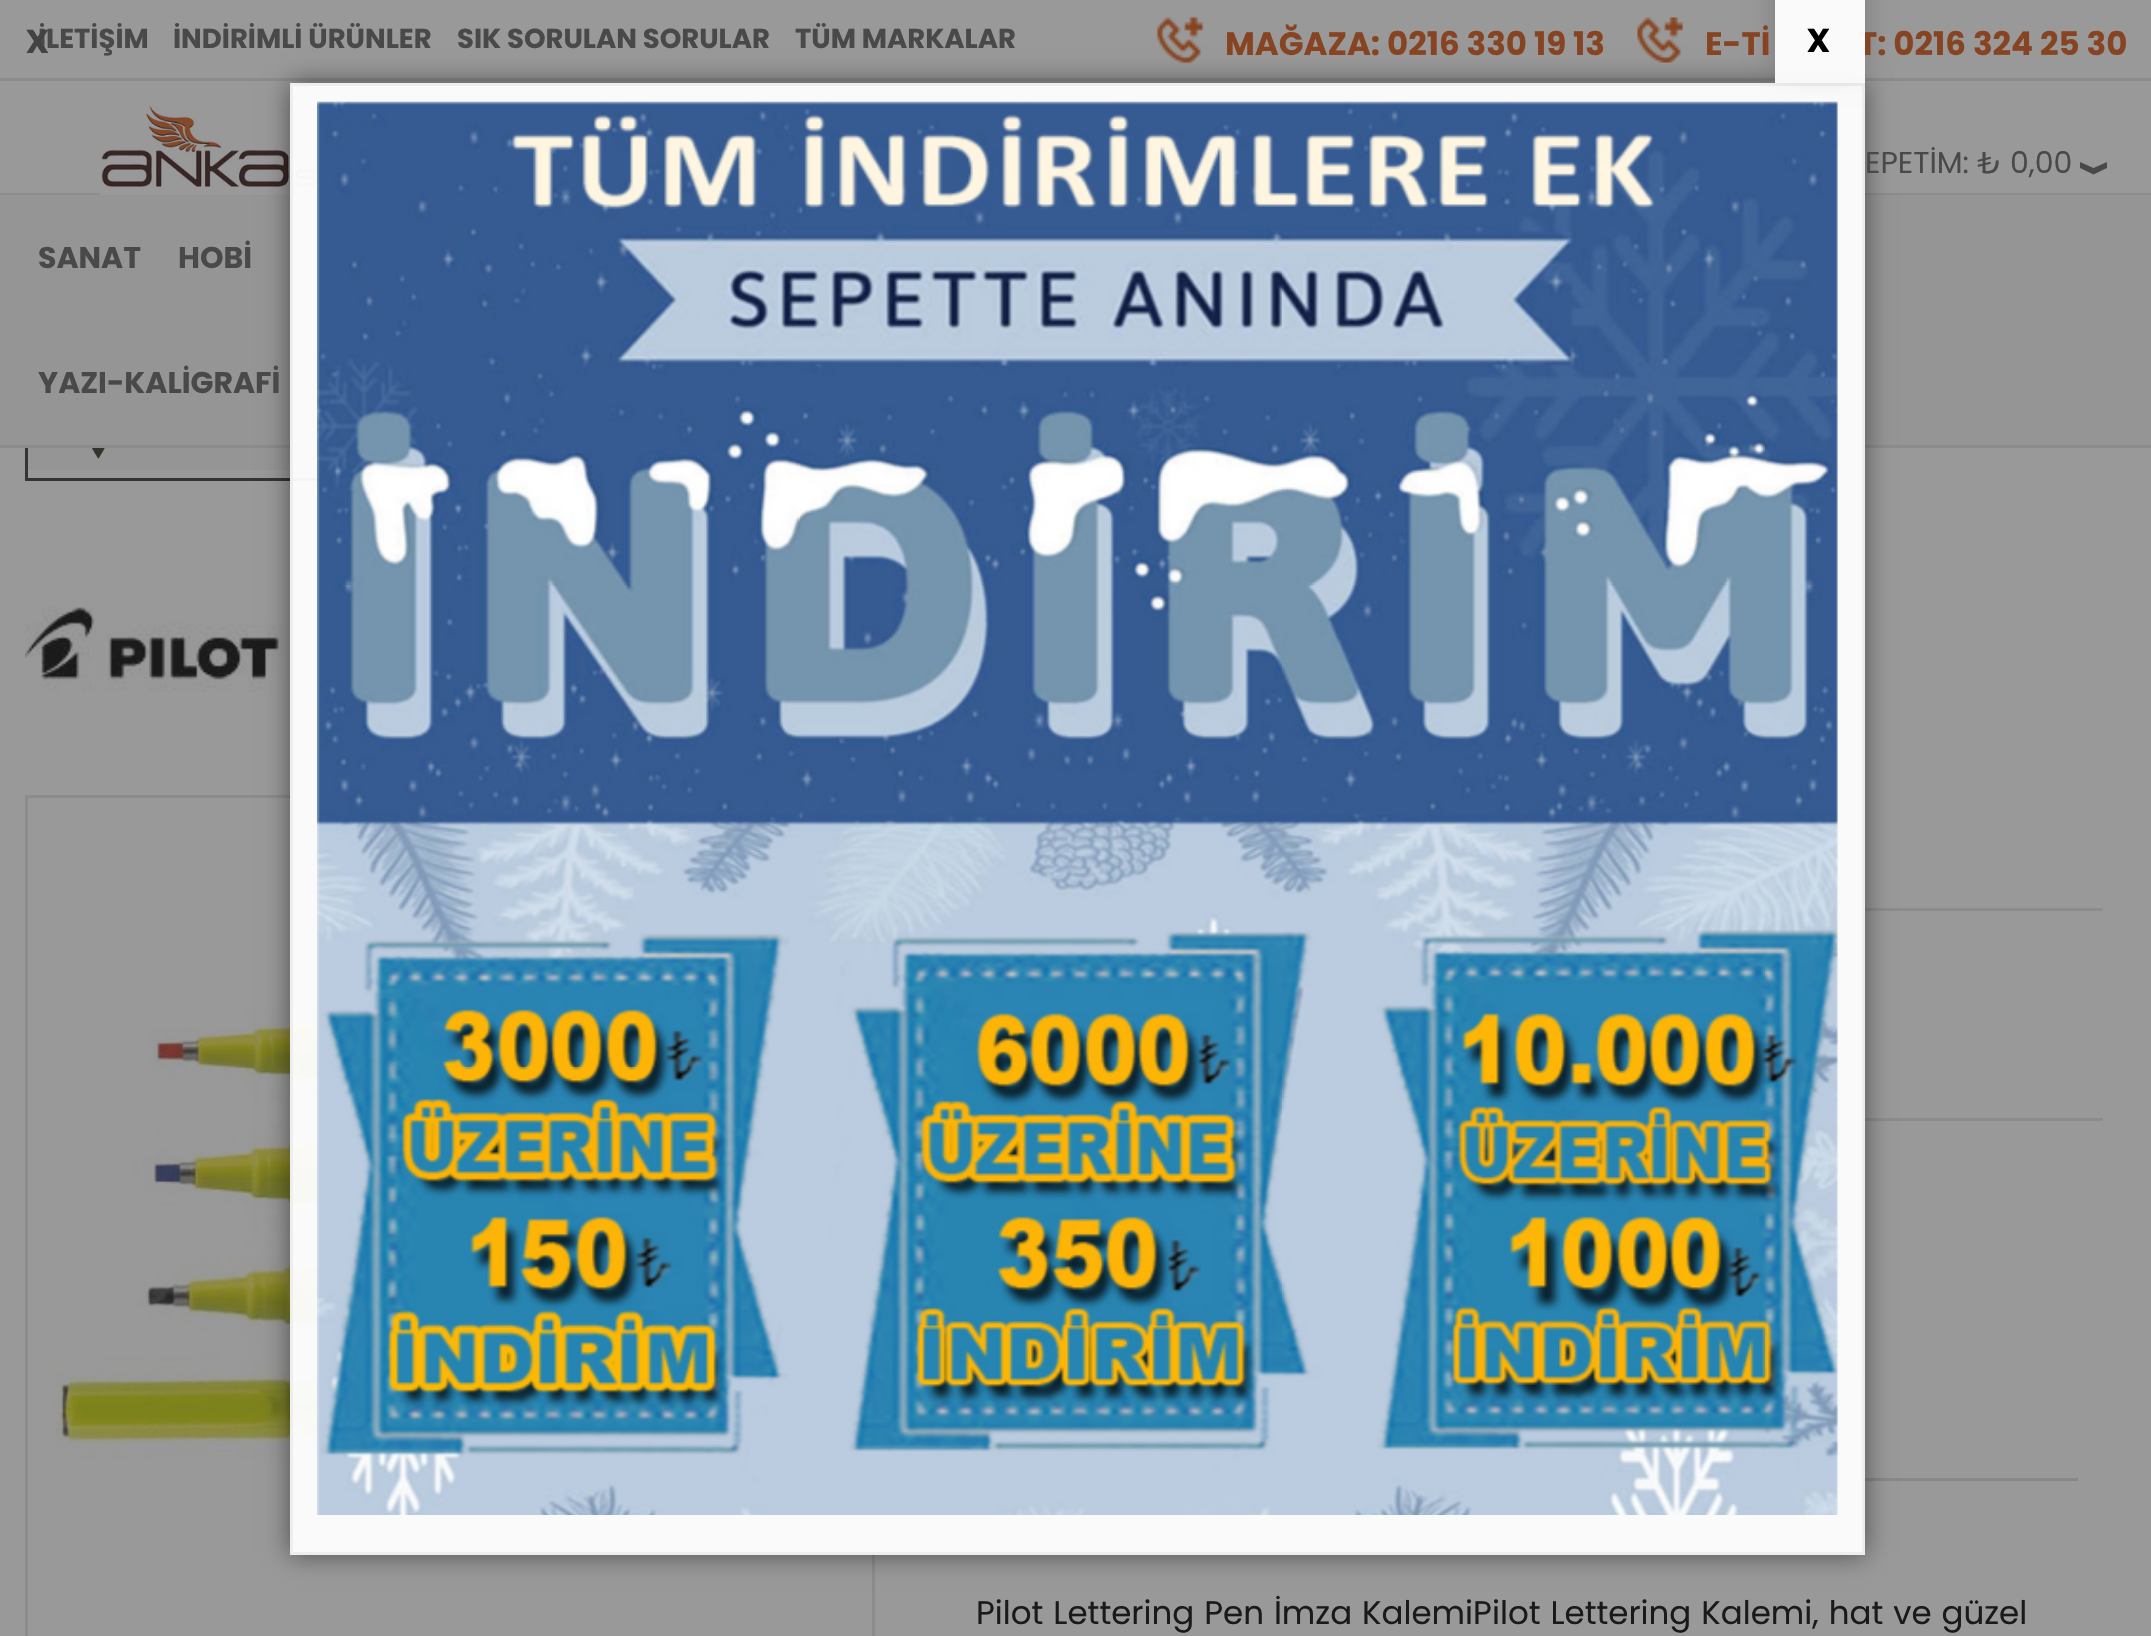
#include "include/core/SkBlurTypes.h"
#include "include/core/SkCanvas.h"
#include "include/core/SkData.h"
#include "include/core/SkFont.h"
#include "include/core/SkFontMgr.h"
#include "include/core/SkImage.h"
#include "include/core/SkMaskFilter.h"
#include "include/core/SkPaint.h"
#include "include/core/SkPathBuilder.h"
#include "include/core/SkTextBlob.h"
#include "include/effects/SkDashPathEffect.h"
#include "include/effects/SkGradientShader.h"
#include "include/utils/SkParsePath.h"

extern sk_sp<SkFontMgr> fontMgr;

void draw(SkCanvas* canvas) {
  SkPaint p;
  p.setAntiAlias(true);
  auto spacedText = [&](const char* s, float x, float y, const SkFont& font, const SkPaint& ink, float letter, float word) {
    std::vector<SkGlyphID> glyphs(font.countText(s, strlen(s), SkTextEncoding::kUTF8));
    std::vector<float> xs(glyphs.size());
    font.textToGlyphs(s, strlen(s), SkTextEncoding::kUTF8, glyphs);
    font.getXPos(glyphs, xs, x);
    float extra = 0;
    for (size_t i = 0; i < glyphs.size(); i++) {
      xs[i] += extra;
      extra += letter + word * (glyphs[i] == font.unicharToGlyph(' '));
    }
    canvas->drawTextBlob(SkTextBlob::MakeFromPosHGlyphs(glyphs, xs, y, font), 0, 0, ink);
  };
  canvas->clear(SkColorSetRGB(153, 153, 153));
  p.setColor(SkColorSetRGB(140, 140, 140));
  canvas->drawRect(SkRect::MakeLTRB(0, 445, 2151, 448), p);
  canvas->drawRect(SkRect::MakeLTRB(0, 78, 2151, 81), p);
  canvas->drawImageRect(SkImages::DeferredFromEncodedData(SkData::MakeFromFileName("images/1.png")), SkRect::MakeLTRB(1156, 16, 1204, 64), SkSamplingOptions());
  canvas->drawImageRect(SkImages::DeferredFromEncodedData(SkData::MakeFromFileName("images/2.png")), SkRect::MakeLTRB(1637, 17, 1683, 63), SkSamplingOptions());
  canvas->drawRect(SkRect::MakeLTRB(0, 193, 2151, 195), p);
  canvas->drawImageRect(SkImages::DeferredFromEncodedData(SkData::MakeFromFileName("images/3.png")), SkRect::MakeLTRB(100, 106, 320, 195), SkSamplingOptions());
  canvas->drawImageRect(SkImages::DeferredFromEncodedData(SkData::MakeFromFileName("images/4.png")), SkRect::MakeLTRB(1836, 131, 1843, 156), SkSamplingOptions());
  p.setColor(SkColorSetRGB(73, 73, 73));
  canvas->drawPath(SkPathBuilder().moveTo(2093.5f, 174.5f).lineTo(2080, 168).lineTo(2080, 162).lineTo(2093.5f, 168).lineTo(2107, 162).lineTo(2107, 168).close().detach(), p);
  p.setColor(SkColorSetRGB(149, 149, 149));
  canvas->drawRect(SkRect::MakeLTRB(0, 195, 2151, 445), p);
  canvas->drawRect(SkRect::MakeLTRB(28, 448, 320, 470), p);
  p.setColor(SkColorSetRGB(52, 52, 52));
  canvas->drawRect(SkRect::MakeLTRB(25, 478, 320, 481), p);
  canvas->drawRect(SkRect::MakeLTRB(25, 448, 28, 480), p);
  canvas->drawImageRect(SkImages::DeferredFromEncodedData(SkData::MakeFromFileName("images/5.png")), SkRect::MakeLTRB(92, 448, 105, 459), SkSamplingOptions());
  canvas->drawImageRect(SkImages::DeferredFromEncodedData(SkData::MakeFromFileName("images/6.png")), SkRect::MakeLTRB(25, 606, 283, 692), SkSamplingOptions());
  p.setStyle(SkPaint::kStroke_Style);
  p.setStrokeWidth(3);
  p.setColor(SkColorSetRGB(140, 140, 140));
  canvas->drawRect(SkRect::MakeLTRB(26.5f, 796.5f, 873.5f, 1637.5f), p);
  canvas->drawImageRect(SkImages::DeferredFromEncodedData(SkData::MakeFromFileName("images/7.png")), SkRect::MakeLTRB(55, 1002, 320, 1459), SkSamplingOptions());
  p.setStyle(SkPaint::kFill_Style);
  canvas->drawRect(SkRect::MakeLTRB(1836, 908, 2103, 911), p);
  canvas->drawRect(SkRect::MakeLTRB(1836, 1118, 2103, 1121), p);
  p.setColor(SkColorSetRGB(136, 136, 136));
  canvas->drawRect(SkRect::MakeLTRB(1836, 1478, 2078, 1481), p);
  canvas->drawRect(SkRect::MakeLTRB(1836, 1375, 1863, 1378), p);
  canvas->drawRect(SkRect::MakeLTRB(1860, 1375, 1862, 1478), p);
  canvas->save();
  canvas->clipPath(SkPathBuilder(SkPathFillType::kEvenOdd).moveTo(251, 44).lineTo(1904, 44).lineTo(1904, 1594).lineTo(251, 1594).close().moveTo(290, 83).lineTo(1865, 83).lineTo(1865, 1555).lineTo(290, 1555).close().detach(), true);
  p.setColor(SkColorSetARGB(128, 0, 0, 0));
  p.setMaskFilter(SkMaskFilter::MakeBlur(kNormal_SkBlurStyle, 12.5f));
  canvas->drawRect(SkRect::MakeLTRB(290, 83, 1865, 1555), p);
  p.setMaskFilter(nullptr);
  canvas->restore();
  p.setColor(SkColorSetARGB(242, 255, 255, 255));
  canvas->drawRect(SkRect::MakeLTRB(291.5f, 84.5f, 1863.5f, 1553.5f), p);
  p.setStyle(SkPaint::kStroke_Style);
  p.setColor(SkColorSetRGB(238, 238, 238));
  canvas->drawRect(SkRect::MakeLTRB(291.5f, 84.5f, 1863.5f, 1553.5f), p);
  canvas->drawImageRect(SkImages::DeferredFromEncodedData(SkData::MakeFromFileName("images/8.png")), SkRect::MakeLTRB(317, 101, 1838, 1515), SkSamplingOptions());
  canvas->save();
  canvas->clipPath(SkPathBuilder(SkPathFillType::kEvenOdd).moveTo(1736, 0).lineTo(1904, 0).lineTo(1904, 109).lineTo(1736, 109).close().moveTo(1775, -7).lineTo(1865, -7).lineTo(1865, 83).lineTo(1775, 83).close().detach(), true);
  p.setStyle(SkPaint::kFill_Style);
  p.setColor(SkColorSetARGB(51, 0, 0, 0));
  p.setMaskFilter(SkMaskFilter::MakeBlur(kNormal_SkBlurStyle, 12.5f));
  canvas->drawRect(SkRect::MakeLTRB(1775, -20, 1865, 70), p);
  p.setMaskFilter(nullptr);
  canvas->restore();
  SkFont font1(fontMgr->matchFamilyStyle("Poppins", SkFontStyle::Bold()), 27.5f);
  font1.setSubpixel(true);
  p.setColor(SkColorSetRGB(73, 73, 73));
  canvas->drawString("İLETİŞİM", 38, 48, font1, p);
  canvas->drawString("İNDİRİMLİ ÜRÜNLER", 173, 48, font1, p);
  canvas->drawString("SIK SORULAN SORULAR", 457, 48, font1, p);
  canvas->drawString("TÜM MARKALAR", 795, 48, font1, p);
  SkFont font2(fontMgr->matchFamilyStyle("Poppins", SkFontStyle::Bold()), 32.5f);
  font2.setSubpixel(true);
  p.setColor(SkColorSetRGB(135, 68, 35));
  canvas->drawString("MAĞAZA: 0216 330 19 13", 1225, 55, font2, p);
  canvas->drawString("E-Tİ", 1705, 55, font2, p);
  canvas->drawString("T: 0216 324 25 30", 1858, 55, font2, p);
  SkFont font3(fontMgr->matchFamilyStyle("Poppins", SkFontStyle::Normal()), 30);
  font3.setSubpixel(true);
  p.setColor(SkColorSetRGB(73, 73, 73));
  canvas->drawString("EPETİM: ₺ 0,00", 1865, 173, font3, p);
  SkFont font4(fontMgr->matchFamilyStyle("Poppins", SkFontStyle::Bold()), 30);
  font4.setSubpixel(true);
  canvas->drawString("SANAT", 38, 268, font4, p);
  canvas->drawString("HOBİ", 178, 268, font4, p);
  canvas->drawString("YAZI-KALİGRAFİ", 38, 393, font4, p);
  SkFont font5(fontMgr->matchFamilyStyle("Poppins", SkFontStyle::Normal()), 32.5f);
  font5.setSubpixel(true);
  p.setColor(SkColorSetRGB(26, 26, 26));
  spacedText("Pilot Lettering Pen İmza KalemiPilot Lettering Kalemi, hat ve güzel", 976, 1624, font5, p, 0, 1.25f);
  SkFont font6(fontMgr->matchFamilyStyle("Poppins", SkFontStyle(600, SkFontStyle::kNormal_Width, SkFontStyle::kUpright_Slant)), 42);
  font6.setSubpixel(true);
  p.setColor(SkColorSetRGB(67, 67, 67));
  canvas->drawString("x", 26, 53, font6, p);
  p.setColor(SkColorSetARGB(242, 255, 255, 255));
  canvas->drawRect(SkRect::MakeLTRB(1775, 0, 1865, 83), p);
  p.setColor(SK_ColorBLACK);
  canvas->drawString("x", 1807, 52, font6, p);
}
